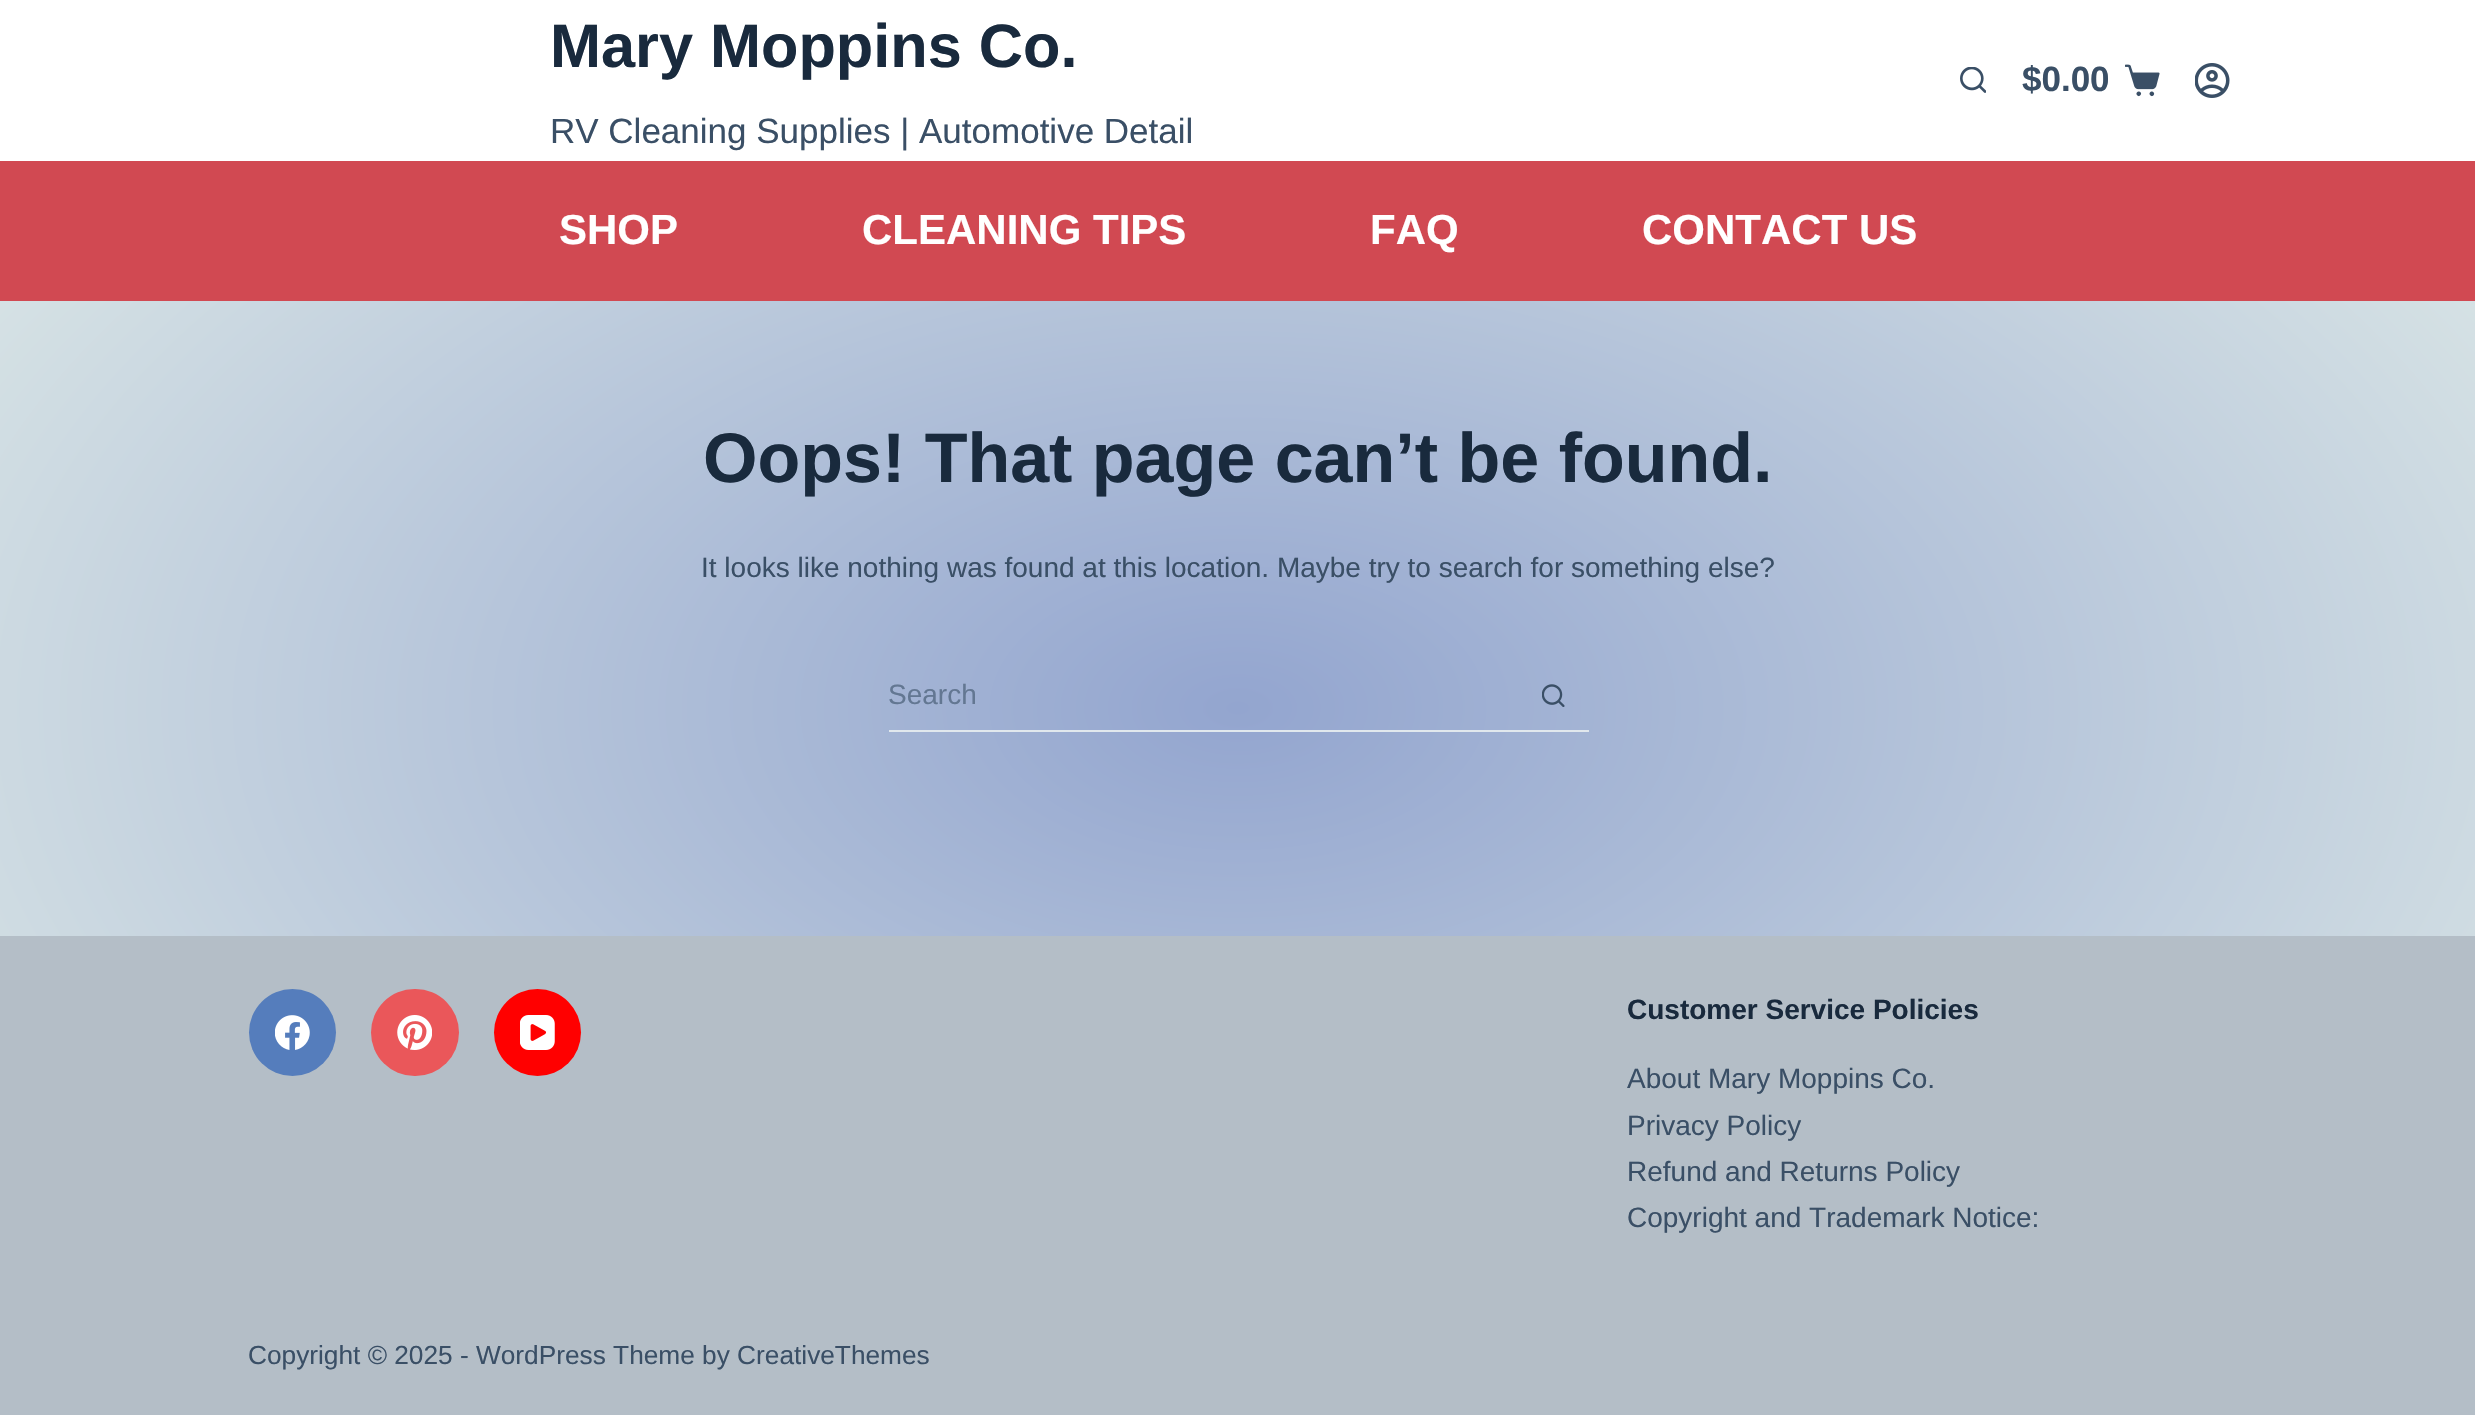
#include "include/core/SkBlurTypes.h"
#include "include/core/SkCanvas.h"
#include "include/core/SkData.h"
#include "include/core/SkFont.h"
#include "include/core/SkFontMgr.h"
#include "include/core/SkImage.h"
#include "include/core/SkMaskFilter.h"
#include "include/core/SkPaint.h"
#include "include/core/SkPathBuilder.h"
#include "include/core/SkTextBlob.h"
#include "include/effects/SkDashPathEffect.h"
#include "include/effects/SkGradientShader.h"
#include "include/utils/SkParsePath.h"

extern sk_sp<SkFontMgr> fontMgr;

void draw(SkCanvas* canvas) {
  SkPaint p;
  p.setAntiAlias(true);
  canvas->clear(SK_ColorWHITE);
  {
    const SkColor colors[] = {SkColorSetRGB(147, 165, 207), SkColorSetRGB(228, 239, 233)};
    const float stops[] = {0, 1};
    SkMatrix m = SkMatrix::Translate(1238, 708).preScale(1751, 1001);
    p.setShader(SkGradientShader::MakeRadial({0, 0}, 1, colors, stops, 2, SkTileMode::kClamp, 0, &m));
    p.setAlpha(255);
  }
  canvas->drawRect(SkRect::MakeLTRB(0, 301, 2475, 936), p);
  canvas->drawImageRect(SkImages::DeferredFromEncodedData(SkData::MakeFromFileName("images/1.png")), SkRect::MakeLTRB(1960, 67, 1986, 93), SkSamplingOptions());
  canvas->drawImageRect(SkImages::DeferredFromEncodedData(SkData::MakeFromFileName("images/2.png")), SkRect::MakeLTRB(2125, 64, 2160, 97), SkSamplingOptions());
  canvas->drawImageRect(SkImages::DeferredFromEncodedData(SkData::MakeFromFileName("images/3.png")), SkRect::MakeLTRB(2195, 63, 2230, 98), SkSamplingOptions());
  p.setShader(nullptr);
  p.setColor(SkColorSetRGB(209, 73, 82));
  canvas->drawRect(SkRect::MakeLTRB(0, 161, 2475, 301), p);
  p.setColor(SkColorSetRGB(225, 232, 237));
  canvas->drawRect(SkRect::MakeLTRB(889, 730, 1589, 732), p);
  canvas->drawImageRect(SkImages::DeferredFromEncodedData(SkData::MakeFromFileName("images/4.png")), SkRect::MakeLTRB(1542, 684, 1565, 707), SkSamplingOptions());
  p.setColor(SkColorSetRGB(180, 190, 199));
  canvas->drawRect(SkRect::MakeLTRB(0, 936, 2475, 1415), p);
  p.setColor(SkColorSetRGB(85, 125, 188));
  canvas->drawCircle(292.5f, 1032.5f, 43.5f, p);
  canvas->drawImageRect(SkImages::DeferredFromEncodedData(SkData::MakeFromFileName("images/5.png")), SkRect::MakeLTRB(275, 1015, 310, 1050), SkSamplingOptions());
  p.setColor(SkColorSetRGB(234, 87, 90));
  canvas->drawRoundRect(SkRect::MakeLTRB(371, 989, 459, 1076), 43.5f, 43.5f, p);
  canvas->drawImageRect(SkImages::DeferredFromEncodedData(SkData::MakeFromFileName("images/6.png")), SkRect::MakeLTRB(397, 1015, 432, 1050), SkSamplingOptions());
  p.setColor(SkColorSetRGB(255, 0, 0));
  canvas->drawCircle(537.5f, 1032.5f, 43.5f, p);
  canvas->drawImageRect(SkImages::DeferredFromEncodedData(SkData::MakeFromFileName("images/7.png")), SkRect::MakeLTRB(520, 1015, 555, 1050), SkSamplingOptions());
  SkFont font1(fontMgr->matchFamilyStyle("Liberation Sans", SkFontStyle::Bold()), 61.25f);
  font1.setSubpixel(true);
  p.setColor(SkColorSetRGB(25, 42, 61));
  canvas->drawString("Mary Moppins Co.", 550, 67, font1, p);
  SkFont font2(fontMgr->matchFamilyStyle("Liberation Sans", SkFontStyle::Normal()), 35);
  font2.setSubpixel(true);
  p.setColor(SkColorSetRGB(58, 79, 102));
  canvas->drawString("RV Cleaning Supplies | Automotive Detail", 550, 143, font2, p);
  SkFont font3(fontMgr->matchFamilyStyle("Liberation Sans", SkFontStyle::Bold()), 35);
  font3.setSubpixel(true);
  canvas->drawString("$0.00", 2022, 91, font3, p);
  SkFont font4(fontMgr->matchFamilyStyle("Liberation Sans", SkFontStyle::Bold()), 42);
  font4.setSubpixel(true);
  p.setColor(SK_ColorWHITE);
  canvas->drawString("SHOP", 559, 244, font4, p);
  canvas->drawString("CLEANING TIPS", 862, 244, font4, p);
  canvas->drawString("FAQ", 1370, 244, font4, p);
  canvas->drawString("CONTACT US", 1642, 244, font4, p);
  SkFont font5(fontMgr->matchFamilyStyle("Liberation Sans", SkFontStyle::Bold()), 70);
  font5.setSubpixel(true);
  p.setColor(SkColorSetRGB(25, 42, 61));
  canvas->drawString("Oops! That page can’t be found.", 703, 482, font5, p);
  SkFont font6(fontMgr->matchFamilyStyle("Liberation Sans", SkFontStyle::Normal()), 28);
  font6.setSubpixel(true);
  p.setColor(SkColorSetRGB(58, 79, 102));
  canvas->drawString("It looks like nothing was found at this location. Maybe try to search for something else?", 701, 577, font6, p);
  p.setColor(SkColorSetRGB(99, 119, 146));
  canvas->drawString("Search", 888, 704, font6, p);
  SkFont font7(fontMgr->matchFamilyStyle("Liberation Sans", SkFontStyle::Bold()), 28);
  font7.setSubpixel(true);
  p.setColor(SkColorSetRGB(25, 42, 61));
  canvas->drawString("Customer Service Policies", 1627, 1019, font7, p);
  p.setColor(SkColorSetRGB(58, 79, 102));
  canvas->drawString("About Mary Moppins Co.", 1627, 1088, font6, p);
  canvas->drawString("Privacy Policy", 1627, 1135, font6, p);
  canvas->drawString("Refund and Returns Policy", 1627, 1181, font6, p);
  canvas->drawString("Copyright and Trademark Notice:", 1627, 1227, font6, p);
  SkFont font8(fontMgr->matchFamilyStyle("Liberation Sans", SkFontStyle::Normal()), 26.25f);
  font8.setSubpixel(true);
  canvas->drawString("Copyright © 2025 - WordPress Theme by CreativeThemes", 248, 1364, font8, p);
}
